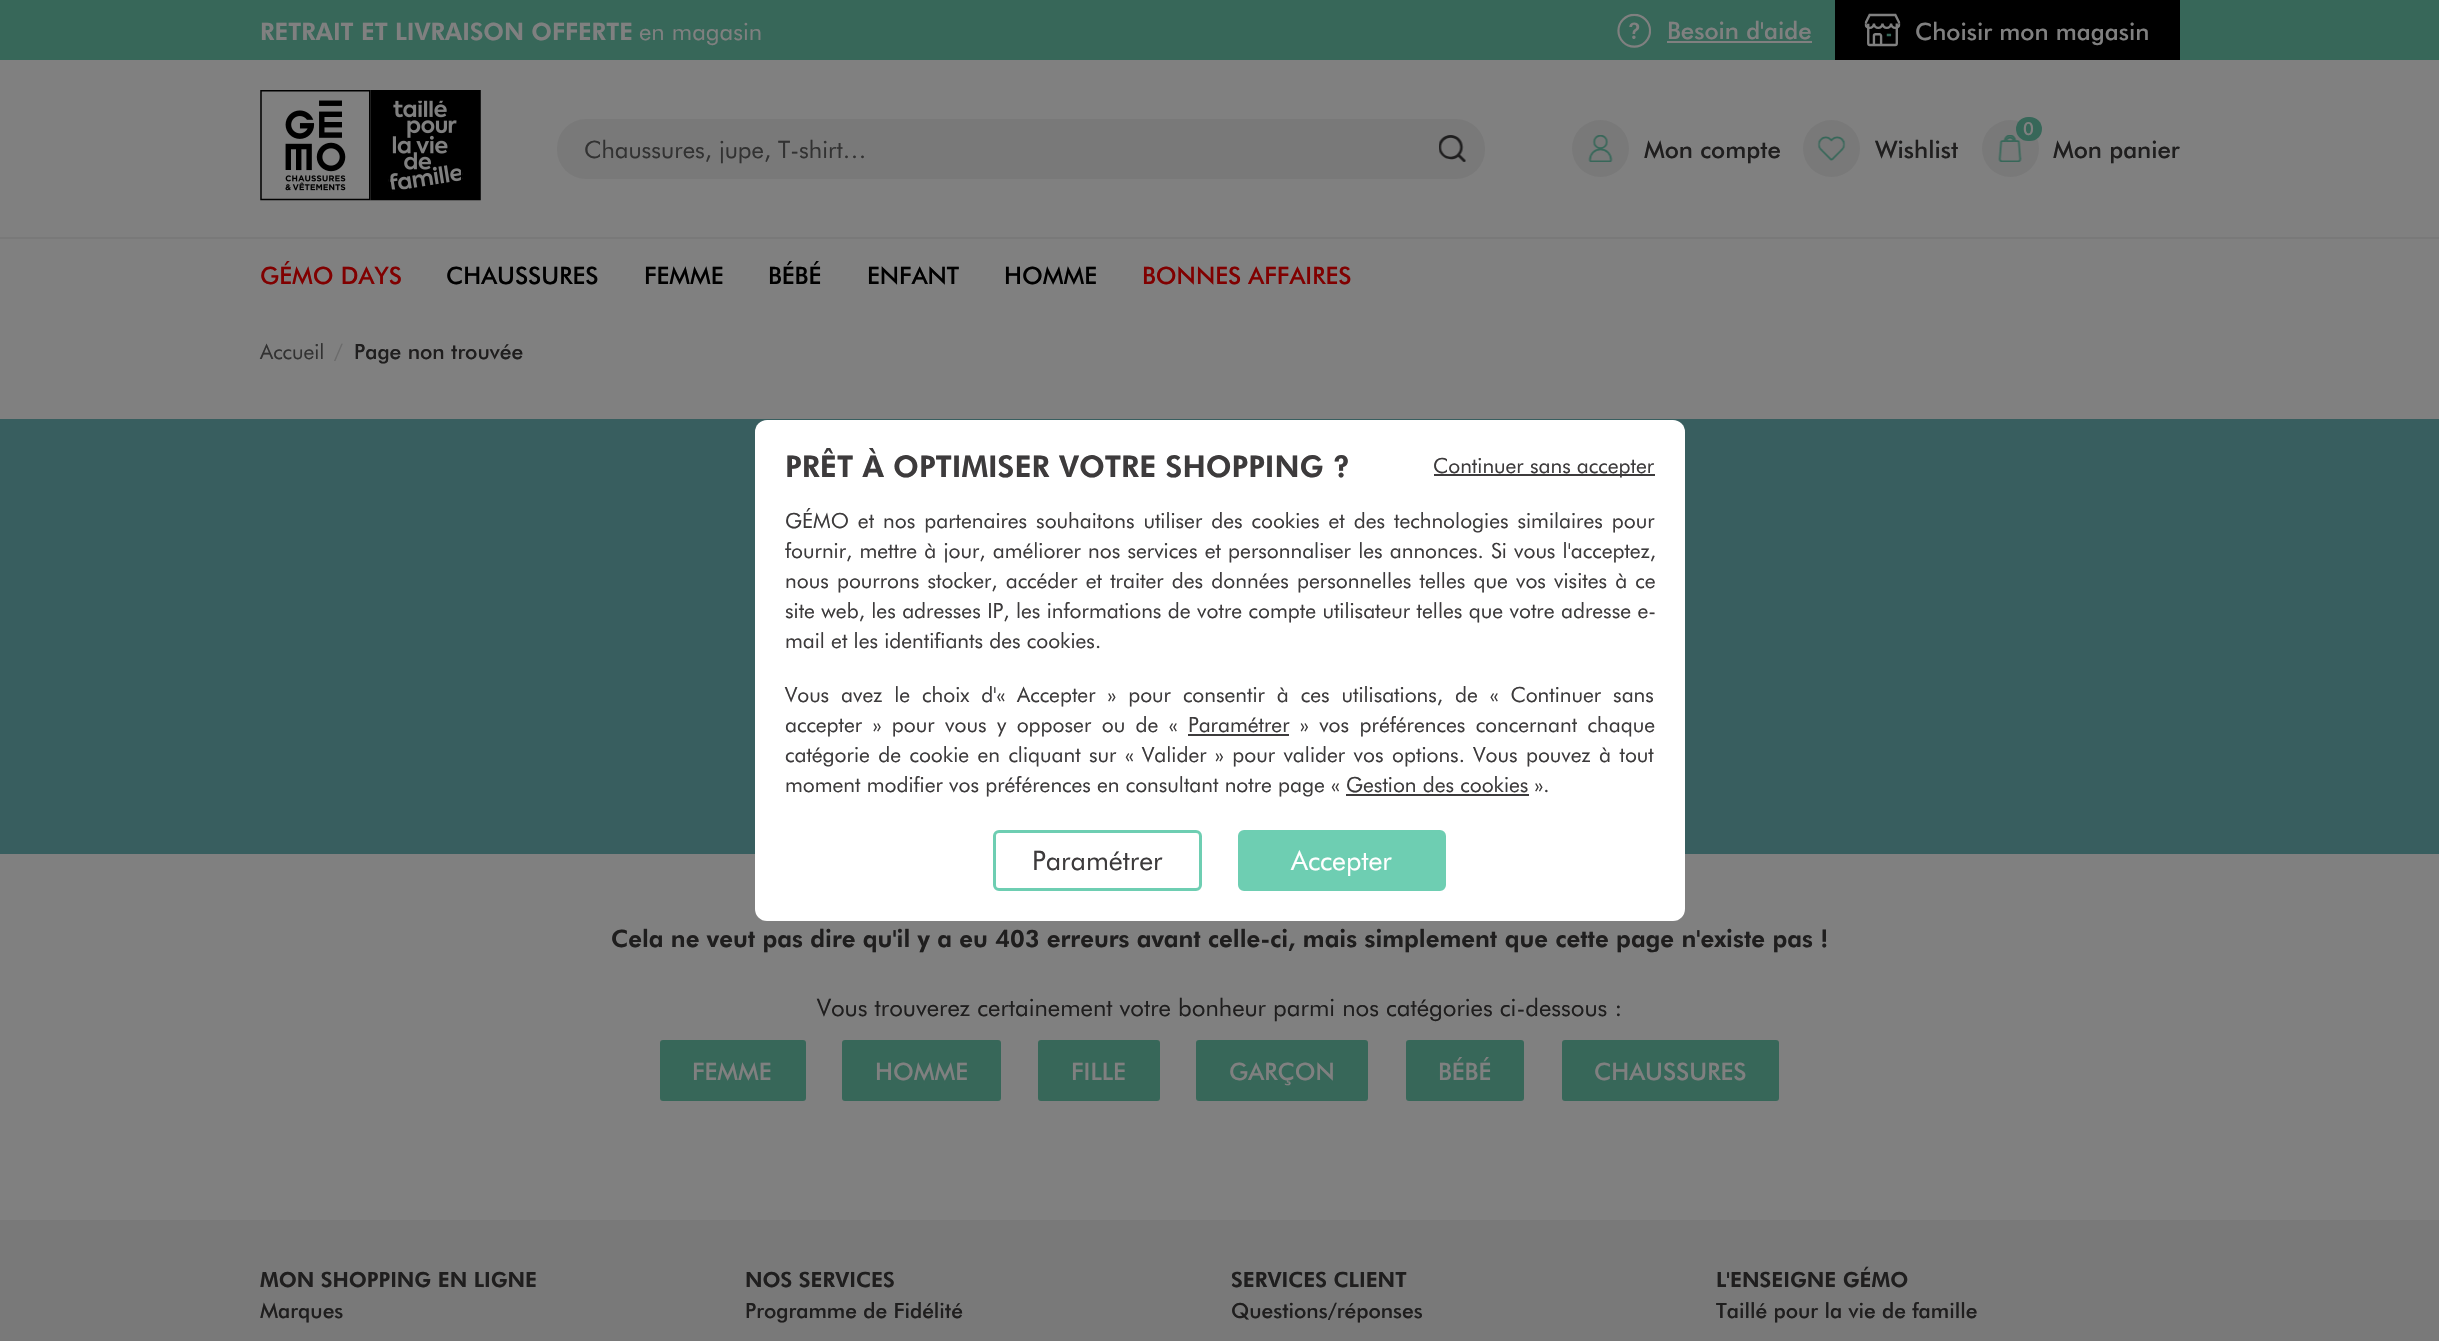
#include "include/core/SkBlurTypes.h"
#include "include/core/SkCanvas.h"
#include "include/core/SkData.h"
#include "include/core/SkFont.h"
#include "include/core/SkFontMgr.h"
#include "include/core/SkImage.h"
#include "include/core/SkMaskFilter.h"
#include "include/core/SkPaint.h"
#include "include/core/SkPathBuilder.h"
#include "include/core/SkTextBlob.h"
#include "include/effects/SkDashPathEffect.h"
#include "include/effects/SkGradientShader.h"
#include "include/utils/SkParsePath.h"

extern sk_sp<SkFontMgr> fontMgr;

void draw(SkCanvas* canvas) {
  SkPaint p;
  p.setAntiAlias(true);
  auto spacedText = [&](const char* s, float x, float y, const SkFont& font, const SkPaint& ink, float letter, float word) {
    std::vector<SkGlyphID> glyphs(font.countText(s, strlen(s), SkTextEncoding::kUTF8));
    std::vector<float> xs(glyphs.size());
    font.textToGlyphs(s, strlen(s), SkTextEncoding::kUTF8, glyphs);
    font.getXPos(glyphs, xs, x);
    float extra = 0;
    for (size_t i = 0; i < glyphs.size(); i++) {
      xs[i] += extra;
      extra += letter + word * (glyphs[i] == font.unicharToGlyph(' '));
    }
    canvas->drawTextBlob(SkTextBlob::MakeFromPosHGlyphs(glyphs, xs, y, font), 0, 0, ink);
  };
  canvas->clear(SkColorSetRGB(128, 128, 128));
  p.setColor(SkColorSetRGB(55, 103, 89));
  canvas->drawRect(SkRect::MakeLTRB(0, 0, 2439, 60), p);
  canvas->drawImageRect(SkImages::DeferredFromEncodedData(SkData::MakeFromFileName("images/1.png")), SkRect::MakeLTRB(1617, 13, 1651, 48), SkSamplingOptions());
  p.setColor(SkColorSetRGB(128, 128, 128));
  canvas->drawRect(SkRect::MakeLTRB(1667, 41, 1812, 43), p);
  p.setColor(SK_ColorBLACK);
  canvas->drawRect(SkRect::MakeLTRB(1835, 0, 2180, 60), p);
  canvas->drawImageRect(SkImages::DeferredFromEncodedData(SkData::MakeFromFileName("images/2.png")), SkRect::MakeLTRB(1864, 13, 1901, 47), SkSamplingOptions());
  canvas->drawImageRect(SkImages::DeferredFromEncodedData(SkData::MakeFromFileName("images/3.png")), SkRect::MakeLTRB(260, 90, 481, 201), SkSamplingOptions());
  p.setColor(SkColorSetRGB(121, 121, 121));
  canvas->drawRoundRect(SkRect::MakeLTRB(557, 119, 1485, 179), 29, 29, p);
  canvas->drawImageRect(SkImages::DeferredFromEncodedData(SkData::MakeFromFileName("images/4.png")), SkRect::MakeLTRB(1439, 135, 1466, 162), SkSamplingOptions());
  canvas->drawCircle(1600.5f, 148.5f, 28.5f, p);
  canvas->drawImageRect(SkImages::DeferredFromEncodedData(SkData::MakeFromFileName("images/5.png")), SkRect::MakeLTRB(1588, 135, 1613, 162), SkSamplingOptions());
  canvas->drawCircle(1831.5f, 148.5f, 28.5f, p);
  canvas->drawImageRect(SkImages::DeferredFromEncodedData(SkData::MakeFromFileName("images/6.png")), SkRect::MakeLTRB(1817, 136, 1846, 161), SkSamplingOptions());
  canvas->drawCircle(2010.5f, 148.5f, 28.5f, p);
  canvas->drawImageRect(SkImages::DeferredFromEncodedData(SkData::MakeFromFileName("images/7.png")), SkRect::MakeLTRB(1998, 135, 2022, 162), SkSamplingOptions());
  p.setColor(SkColorSetRGB(55, 103, 89));
  canvas->drawRoundRect(SkRect::MakeLTRB(2016, 117, 2042, 141), 12, 12, p);
  p.setColor(SkColorSetRGB(121, 121, 121));
  canvas->drawRect(SkRect::MakeLTRB(0, 237, 2439, 239), p);
  p.setColor(SkColorSetRGB(56, 94, 95));
  canvas->drawRect(SkRect::MakeLTRB(0, 419, 2439, 854), p);
  p.setColor(SkColorSetRGB(55, 103, 89));
  canvas->drawRoundRect(SkRect::MakeLTRB(660, 1040, 806, 1101), 3, 3, p);
  canvas->drawRoundRect(SkRect::MakeLTRB(842, 1040, 1001, 1101), 3, 3, p);
  canvas->drawRoundRect(SkRect::MakeLTRB(1038, 1040, 1160, 1101), 3, 3, p);
  canvas->drawRoundRect(SkRect::MakeLTRB(1196, 1040, 1368, 1101), 3, 3, p);
  canvas->drawRoundRect(SkRect::MakeLTRB(1406, 1040, 1524, 1101), 3, 3, p);
  canvas->drawRoundRect(SkRect::MakeLTRB(1562, 1040, 1779, 1101), 3, 3, p);
  p.setColor(SK_ColorWHITE);
  canvas->drawRoundRect(SkRect::MakeLTRB(755, 420, 1685, 921), 12, 12, p);
  {
    const SkColor colors[] = {SkColorSetRGB(204, 204, 204), SK_ColorWHITE};
    const float stops[] = {0, 1};
    SkMatrix m = SkMatrix::Translate(1220, 800).preScale(435, 21);
    p.setShader(SkGradientShader::MakeRadial({0, 0}, 1, colors, stops, 2, SkTileMode::kClamp, 0, &m));
    p.setAlpha(255);
  }
  canvas->drawRect(SkRect::MakeLTRB(1131, 780, 1309, 781), p);
  {
    const SkColor colors[] = {SkColorSetRGB(204, 204, 204), SK_ColorWHITE};
    const float stops[] = {0, 1};
    SkMatrix m = SkMatrix::Translate(1220, 506).preScale(435, 21);
    p.setShader(SkGradientShader::MakeRadial({0, 0}, 1, colors, stops, 2, SkTileMode::kClamp, 0, &m));
    p.setAlpha(255);
  }
  canvas->drawRect(SkRect::MakeLTRB(1065, 524, 1375, 526), p);
  {
    const SkColor colors[] = {SkColorSetARGB(0, 255, 255, 255), SK_ColorWHITE};
    const float stops[] = {0, 0.7f};
    const SkPoint ends[] = {{1220, 739}, {1220, 800}};
    p.setShader(SkGradientShader::MakeLinear(ends, colors, stops, 2, SkTileMode::kClamp));
    p.setAlpha(255);
  }
  canvas->drawRect(SkRect::MakeLTRB(1131, 780, 1309, 781), p);
  {
    const SkColor colors[] = {SK_ColorWHITE, SkColorSetARGB(0, 255, 255, 255)};
    const float stops[] = {0.3f, 1};
    const SkPoint ends[] = {{1220, 505}, {1220, 566}};
    p.setShader(SkGradientShader::MakeLinear(ends, colors, stops, 2, SkTileMode::kClamp));
    p.setAlpha(255);
  }
  canvas->drawRect(SkRect::MakeLTRB(1065, 524, 1375, 526), p);
  p.setShader(nullptr);
  p.setColor(SkColorSetRGB(61, 59, 60));
  canvas->drawRect(SkRect::MakeLTRB(1188, 734, 1289, 736), p);
  canvas->drawRect(SkRect::MakeLTRB(1346, 794, 1529, 796), p);
  canvas->drawRect(SkRect::MakeLTRB(1434, 474, 1655, 476), p);
  p.setStyle(SkPaint::kStroke_Style);
  p.setStrokeWidth(3);
  p.setColor(SkColorSetRGB(110, 206, 178));
  canvas->drawRoundRect(SkRect::MakeLTRB(994.5f, 831.5f, 1200.5f, 889.5f), 4.5f, 4.5f, p);
  p.setStyle(SkPaint::kFill_Style);
  canvas->drawRoundRect(SkRect::MakeLTRB(1239.5f, 831.5f, 1444.5f, 889.5f), 4.5f, 4.5f, p);
  p.setStyle(SkPaint::kStroke_Style);
  canvas->drawRoundRect(SkRect::MakeLTRB(1239.5f, 831.5f, 1444.5f, 889.5f), 4.5f, 4.5f, p);
  p.setStyle(SkPaint::kFill_Style);
  p.setColor(SkColorSetRGB(121, 121, 121));
  canvas->drawRect(SkRect::MakeLTRB(0, 1220, 2439, 1341), p);
  SkFont font1(fontMgr->matchFamilyStyle("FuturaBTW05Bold", SkFontStyle::Bold()), 24);
  font1.setSubpixel(true);
  p.setColor(SkColorSetRGB(128, 128, 128));
  canvas->drawString("RETRAIT ET LIVRAISON OFFERTE", 260, 40, font1, p);
  SkFont font2(fontMgr->matchFamilyStyle("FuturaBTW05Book", SkFontStyle::Normal()), 24);
  font2.setSubpixel(true);
  canvas->drawString("en magasin", 639, 40, font2, p);
  SkFont font3(fontMgr->matchFamilyStyle("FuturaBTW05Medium", SkFontStyle(500, SkFontStyle::kNormal_Width, SkFontStyle::kUpright_Slant)), 24);
  font3.setSubpixel(true);
  canvas->drawString("Besoin d'aide", 1667, 39, font3, p);
  canvas->drawString("Choisir mon magasin", 1915, 40, font3, p);
  p.setColor(SkColorSetRGB(50, 50, 50));
  canvas->drawString("Chaussures, jupe, T-shirt…", 584, 158, font2, p);
  p.setColor(SkColorSetRGB(31, 30, 30));
  canvas->drawString("Mon compte", 1644, 158, font3, p);
  canvas->drawString("Wishlist", 1875, 158, font3, p);
  SkFont font4(fontMgr->matchFamilyStyle("FuturaBTW05Medium", SkFontStyle(500, SkFontStyle::kNormal_Width, SkFontStyle::kUpright_Slant)), 18);
  font4.setSubpixel(true);
  p.setColor(SkColorSetRGB(128, 128, 128));
  canvas->drawString("0", 2023, 135, font4, p);
  p.setColor(SkColorSetRGB(31, 30, 30));
  canvas->drawString("Mon panier", 2053, 158, font3, p);
  p.setColor(SkColorSetRGB(128, 0, 0));
  canvas->drawString("GÉMO DAYS", 260, 284, font3, p);
  p.setColor(SK_ColorBLACK);
  canvas->drawString("CHAUSSURES", 446, 284, font3, p);
  canvas->drawString("FEMME", 644, 284, font3, p);
  canvas->drawString("BÉBÉ", 768, 284, font3, p);
  canvas->drawString("ENFANT", 867, 284, font3, p);
  canvas->drawString("HOMME", 1004, 284, font3, p);
  p.setColor(SkColorSetRGB(128, 0, 0));
  canvas->drawString("BONNES AFFAIRES", 1142, 284, font3, p);
  SkFont font5(fontMgr->matchFamilyStyle("FuturaBTW05Book", SkFontStyle::Normal()), 21);
  font5.setSubpixel(true);
  p.setColor(SkColorSetRGB(50, 50, 50));
  canvas->drawString("Accueil", 260, 359, font5, p);
  p.setColor(SkColorSetRGB(107, 107, 107));
  canvas->drawString("/", 334, 359, font5, p);
  SkFont font6(fontMgr->matchFamilyStyle("FuturaBTW05Medium", SkFontStyle(500, SkFontStyle::kNormal_Width, SkFontStyle::kUpright_Slant)), 21);
  font6.setSubpixel(true);
  p.setColor(SkColorSetRGB(31, 30, 30));
  canvas->drawString("Page non trouvée", 354, 359, font6, p);
  canvas->drawString("Cela ne veut pas dire qu'il y a eu 403 erreurs avant celle-ci, mais simplement que cette page n'existe pas !", 611, 947, font1, p);
  canvas->drawString("Vous trouverez certainement votre bonheur parmi nos catégories ci-dessous :", 817, 1016, font2, p);
  p.setColor(SkColorSetRGB(128, 128, 128));
  canvas->drawString("FEMME", 692, 1080, font3, p);
  canvas->drawString("HOMME", 875, 1080, font3, p);
  canvas->drawString("FILLE", 1071, 1080, font3, p);
  canvas->drawString("GARÇON", 1229, 1080, font3, p);
  canvas->drawString("BÉBÉ", 1438, 1080, font3, p);
  canvas->drawString("CHAUSSURES", 1594, 1080, font3, p);
  SkFont font7(fontMgr->matchFamilyStyle("FuturaBTW05Bold", SkFontStyle::Bold()), 30);
  font7.setSubpixel(true);
  p.setColor(SkColorSetRGB(61, 59, 60));
  canvas->drawString("PRÊT À OPTIMISER VOTRE SHOPPING ?", 785, 477, font7, p);
  spacedText("GÉMO et nos partenaires souhaitons utiliser des cookies et des technologies similaires pour", 785, 528, font5, p, 0, 2.75f);
  spacedText("fournir, mettre à jour, améliorer nos services et personnaliser les annonces. Si vous l'acceptez,", 785, 558, font5, p, 0, 1);
  spacedText("nous pourrons stocker, accéder et traiter des données personnelles telles que vos visites à ce", 785, 588, font5, p, 0, 2);
  spacedText("site web, les adresses IP, les informations de votre compte utilisateur telles que votre adresse e-", 785, 618, font5, p, 0, 0.25f);
  canvas->drawString("mail et les identifiants des cookies.", 785, 648, font5, p);
  spacedText("Vous avez le choix d'« Accepter » pour consentir à ces utilisations, de « Continuer sans", 785, 702, font5, p, 0, 5.75f);
  spacedText("accepter » pour vous y opposer ou de «", 785, 732, font5, p, 0, 4.25f);
  canvas->drawString("Paramétrer", 1188, 732, font5, p);
  spacedText("» vos préférences concernant chaque", 1300, 732, font5, p, 0, 4.25f);
  spacedText("catégorie de cookie en cliquant sur « Valider » pour valider vos options. Vous pouvez à tout", 785, 762, font5, p, 0, 2.25f);
  canvas->drawString("moment modifier vos préférences en consultant notre page « Gestion des cookies ».", 785, 792, font5, p);
  canvas->drawString("Continuer sans accepter", 1433, 473, font5, p);
  SkFont font8(fontMgr->matchFamilyStyle("FuturaBTW05Book", SkFontStyle::Normal()), 27);
  font8.setSubpixel(true);
  canvas->drawString("Paramétrer", 1032, 870, font8, p);
  p.setColor(SK_ColorWHITE);
  canvas->drawString("Accepter", 1291, 870, font8, p);
  SkFont font9(fontMgr->matchFamilyStyle("FuturaBTW05Bold", SkFontStyle::Bold()), 21);
  font9.setSubpixel(true);
  p.setColor(SkColorSetRGB(31, 30, 30));
  canvas->drawString("MON SHOPPING EN LIGNE", 260, 1287, font9, p);
  canvas->drawString("Marques", 260, 1318, font6, p);
  canvas->drawString("NOS SERVICES", 745, 1287, font9, p);
  canvas->drawString("Programme de Fidélité", 745, 1318, font6, p);
  canvas->drawString("SERVICES CLIENT", 1231, 1287, font9, p);
  canvas->drawString("Questions/réponses", 1231, 1318, font6, p);
  canvas->drawString("L'ENSEIGNE GÉMO", 1716, 1287, font9, p);
  canvas->drawString("Taillé pour la vie de famille", 1716, 1318, font6, p);
}
